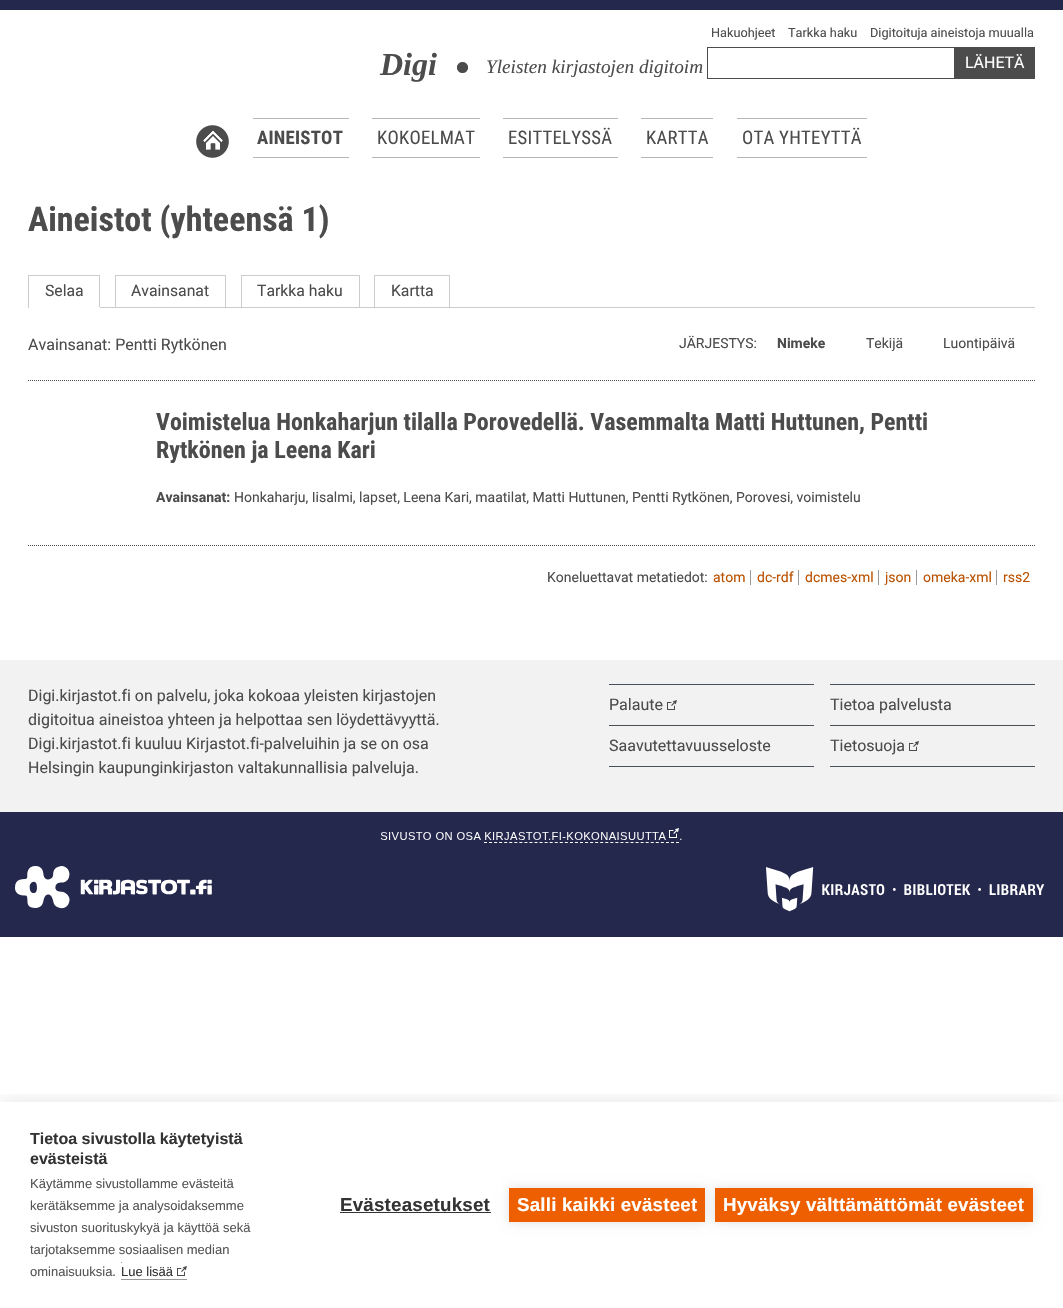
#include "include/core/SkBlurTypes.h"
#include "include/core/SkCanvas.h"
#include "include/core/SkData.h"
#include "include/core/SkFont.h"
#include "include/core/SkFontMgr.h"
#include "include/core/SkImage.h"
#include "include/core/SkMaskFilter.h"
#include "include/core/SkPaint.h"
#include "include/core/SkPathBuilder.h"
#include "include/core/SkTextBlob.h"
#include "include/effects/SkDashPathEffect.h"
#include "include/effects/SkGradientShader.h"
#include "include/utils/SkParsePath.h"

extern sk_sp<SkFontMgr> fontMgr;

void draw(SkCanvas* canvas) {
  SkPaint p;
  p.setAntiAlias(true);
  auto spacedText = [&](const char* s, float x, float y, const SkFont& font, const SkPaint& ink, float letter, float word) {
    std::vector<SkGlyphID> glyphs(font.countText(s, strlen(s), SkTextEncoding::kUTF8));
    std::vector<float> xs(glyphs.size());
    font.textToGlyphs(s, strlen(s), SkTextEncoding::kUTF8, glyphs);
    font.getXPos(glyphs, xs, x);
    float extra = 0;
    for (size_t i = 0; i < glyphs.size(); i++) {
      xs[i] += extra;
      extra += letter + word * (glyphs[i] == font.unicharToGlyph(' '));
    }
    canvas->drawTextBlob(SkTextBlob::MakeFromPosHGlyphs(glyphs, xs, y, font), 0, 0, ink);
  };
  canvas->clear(SK_ColorWHITE);
  p.setColor(SkColorSetRGB(37, 40, 77));
  canvas->drawRect(SkRect::MakeLTRB(0, 0, 1063, 10), p);
  canvas->drawImageRect(SkImages::DeferredFromEncodedData(SkData::MakeFromFileName("images/1.png")), SkRect::MakeLTRB(457, 62, 468, 73), SkSamplingOptions());
  p.setStyle(SkPaint::kStroke_Style);
  p.setStrokeWidth(1);
  p.setColor(SkColorSetRGB(76, 76, 76));
  canvas->drawRect(SkRect::MakeLTRB(707.5f, 47.5f, 954.5f, 78.5f), p);
  p.setStyle(SkPaint::kFill_Style);
  canvas->drawRect(SkRect::MakeLTRB(955, 47, 1035, 79), p);
  canvas->drawImageRect(SkImages::DeferredFromEncodedData(SkData::MakeFromFileName("images/2.png")), SkRect::MakeLTRB(196, 125, 229, 158), SkSamplingOptions());
  p.setColor(SkColorSetRGB(184, 182, 180));
  canvas->drawRect(SkRect::MakeLTRB(253, 118, 349, 119), p);
  canvas->drawRect(SkRect::MakeLTRB(253, 157, 349, 158), p);
  canvas->drawRect(SkRect::MakeLTRB(372, 118, 480, 119), p);
  canvas->drawRect(SkRect::MakeLTRB(372, 157, 480, 158), p);
  canvas->drawRect(SkRect::MakeLTRB(503, 118, 618, 119), p);
  canvas->drawRect(SkRect::MakeLTRB(503, 157, 618, 158), p);
  canvas->drawRect(SkRect::MakeLTRB(641, 118, 713, 119), p);
  canvas->drawRect(SkRect::MakeLTRB(641, 157, 713, 158), p);
  canvas->drawRect(SkRect::MakeLTRB(737, 118, 867, 119), p);
  canvas->drawRect(SkRect::MakeLTRB(737, 157, 867, 158), p);
  p.setColor(SkColorSetRGB(204, 204, 204));
  canvas->drawRect(SkRect::MakeLTRB(100, 307, 1035, 308), p);
  canvas->drawRect(SkRect::MakeLTRB(28, 275, 100, 276), p);
  canvas->drawRect(SkRect::MakeLTRB(99, 275, 100, 308), p);
  p.setColor(SK_ColorWHITE);
  canvas->drawRect(SkRect::MakeLTRB(99, 307, 100, 308), p);
  p.setColor(SkColorSetRGB(204, 204, 204));
  canvas->drawRect(SkRect::MakeLTRB(28, 275, 29, 308), p);
  p.setStyle(SkPaint::kStroke_Style);
  canvas->drawRect(SkRect::MakeLTRB(115.5f, 275.5f, 225.5f, 307.5f), p);
  canvas->drawRect(SkRect::MakeLTRB(241.5f, 275.5f, 359.5f, 307.5f), p);
  p.setStyle(SkPaint::kFill_Style);
  canvas->drawRect(SkRect::MakeLTRB(374, 275, 450, 276), p);
  canvas->drawRect(SkRect::MakeLTRB(449, 275, 450, 307), p);
  canvas->drawRect(SkRect::MakeLTRB(374, 275, 375, 307), p);
  p.setStyle(SkPaint::kStroke_Style);
  p.setColor(SkColorSetRGB(76, 76, 76));
  p.setPathEffect(SkDashPathEffect::Make({{1, 1}}, 0));
  canvas->drawPath(SkPathBuilder().moveTo(28, 380.5f).lineTo(1035, 380.5f).detach(), p);
  p.setPathEffect(nullptr);
  p.setPathEffect(SkDashPathEffect::Make({{1, 1}}, 0));
  canvas->drawPath(SkPathBuilder().moveTo(28, 545.5f).lineTo(1035, 545.5f).detach(), p);
  p.setPathEffect(nullptr);
  p.setStyle(SkPaint::kFill_Style);
  p.setColor(SkColorSetRGB(153, 153, 153));
  canvas->drawRect(SkRect::MakeLTRB(750, 570, 751, 585), p);
  canvas->drawRect(SkRect::MakeLTRB(798, 570, 799, 585), p);
  canvas->drawRect(SkRect::MakeLTRB(878, 570, 879, 585), p);
  canvas->drawRect(SkRect::MakeLTRB(916, 570, 917, 585), p);
  canvas->drawRect(SkRect::MakeLTRB(996, 570, 997, 585), p);
  p.setColor(SkColorSetRGB(242, 242, 242));
  canvas->drawRect(SkRect::MakeLTRB(0, 660, 1063, 812), p);
  p.setColor(SkColorSetRGB(73, 80, 87));
  canvas->drawRect(SkRect::MakeLTRB(609, 684, 814, 685), p);
  canvas->drawRect(SkRect::MakeLTRB(609, 725, 814, 726), p);
  canvas->drawImageRect(SkImages::DeferredFromEncodedData(SkData::MakeFromFileName("images/3.png")), SkRect::MakeLTRB(667, 700, 677, 710), SkSamplingOptions());
  canvas->drawRect(SkRect::MakeLTRB(830, 684, 1035, 685), p);
  canvas->drawRect(SkRect::MakeLTRB(830, 725, 1035, 726), p);
  canvas->drawRect(SkRect::MakeLTRB(609, 766, 814, 767), p);
  canvas->drawRect(SkRect::MakeLTRB(830, 766, 1035, 767), p);
  canvas->drawImageRect(SkImages::DeferredFromEncodedData(SkData::MakeFromFileName("images/3.png")), SkRect::MakeLTRB(909, 741, 919, 751), SkSamplingOptions());
  p.setColor(SkColorSetRGB(37, 40, 77));
  canvas->drawRect(SkRect::MakeLTRB(0, 812, 1063, 937), p);
  canvas->drawImageRect(SkImages::DeferredFromEncodedData(SkData::MakeFromFileName("images/4.png")), SkRect::MakeLTRB(15, 828, 1045, 912), SkSamplingOptions());
  canvas->save();
  canvas->clipRect(SkRect::MakeLTRB(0, 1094, 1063, 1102));
  p.setColor(SkColorSetARGB(26, 0, 0, 0));
  p.setMaskFilter(SkMaskFilter::MakeBlur(kNormal_SkBlurStyle, 10));
  canvas->drawRect(SkRect::MakeLTRB(0, 1102, 1063, 1308), p);
  p.setMaskFilter(nullptr);
  canvas->restore();
  p.setColor(SkColorSetRGB(153, 153, 153));
  canvas->drawRect(SkRect::MakeLTRB(121, 1262, 122, 1263), p);
  canvas->drawRect(SkRect::MakeLTRB(121, 1279, 187, 1280), p);
  canvas->drawImageRect(SkImages::DeferredFromEncodedData(SkData::MakeFromFileName("images/5.png")), SkRect::MakeLTRB(177, 1266, 187, 1276), SkSamplingOptions());
  p.setColor(SkColorSetRGB(51, 51, 51));
  canvas->drawRect(SkRect::MakeLTRB(340, 1212, 491, 1213), p);
  p.setColor(SkColorSetARGB(31, 0, 0, 0));
  p.setMaskFilter(SkMaskFilter::MakeBlur(kNormal_SkBlurStyle, 5));
  canvas->drawRect(SkRect::MakeLTRB(509, 1188, 705, 1222), p);
  p.setMaskFilter(nullptr);
  p.setColor(SkColorSetRGB(237, 95, 0));
  canvas->drawRect(SkRect::MakeLTRB(509, 1188, 705, 1222), p);
  p.setColor(SkColorSetARGB(31, 0, 0, 0));
  p.setMaskFilter(SkMaskFilter::MakeBlur(kNormal_SkBlurStyle, 5));
  canvas->drawRect(SkRect::MakeLTRB(715, 1188, 1033, 1222), p);
  p.setMaskFilter(nullptr);
  p.setColor(SkColorSetRGB(237, 95, 0));
  canvas->drawRect(SkRect::MakeLTRB(715, 1188, 1033, 1222), p);
  SkFont font1(fontMgr->matchFamilyStyle("Liberation Serif", SkFontStyle::BoldItalic()), 32);
  font1.setSubpixel(true);
  p.setColor(SkColorSetRGB(76, 76, 76));
  canvas->drawString("Digi", 380, 75, font1, p);
  SkFont font2(fontMgr->matchFamilyStyle("Liberation Serif", SkFontStyle::Italic()), 19.25f);
  font2.setSubpixel(true);
  canvas->drawString("Yleisten kirjastojen digitoim", 486, 73, font2, p);
  SkFont font3(fontMgr->matchFamilyStyle("Roboto", SkFontStyle::Normal()), 12.75f);
  font3.setSubpixel(true);
  canvas->drawString("Hakuohjeet", 711, 37, font3, p);
  canvas->drawString("Tarkka haku", 788, 37, font3, p);
  canvas->drawString("Digitoituja aineistoja muualla", 870, 37, font3, p);
  SkFont font4(fontMgr->matchFamilyStyle("Roboto", SkFontStyle::Normal()), 16);
  font4.setSubpixel(true);
  p.setColor(SK_ColorWHITE);
  canvas->drawString("LÄHETÄ", 965, 68, font4, p);
  SkFont font5(fontMgr->matchFamilyStyle("Roboto Condensed", SkFontStyle::Bold()), 18.75f);
  font5.setSubpixel(true);
  p.setColor(SkColorSetRGB(76, 76, 76));
  spacedText("AINEISTOT", 257, 144, font5, p, 0.25f, 0);
  SkFont font6(fontMgr->matchFamilyStyle("Roboto Condensed", SkFontStyle::Normal()), 18.75f);
  font6.setSubpixel(true);
  spacedText("KOKOELMAT", 377, 144, font6, p, 0.25f, 0);
  spacedText("ESITTELYSSÄ", 508, 144, font6, p, 0.25f, 0);
  spacedText("KARTTA", 646, 144, font6, p, 0.25f, 0);
  spacedText("OTA YHTEYTTÄ", 742, 144, font6, p, 0.25f, 0);
  SkFont font7(fontMgr->matchFamilyStyle("Roboto Condensed", SkFontStyle::Bold()), 34);
  font7.setSubpixel(true);
  canvas->drawString("Aineistot (yhteensä 1)", 28, 231, font7, p);
  SkFont font8(fontMgr->matchFamilyStyle("Roboto", SkFontStyle::Normal()), 15.75f);
  font8.setSubpixel(true);
  canvas->drawString("Selaa", 45, 296, font8, p);
  canvas->drawString("Avainsanat", 131, 296, font8, p);
  canvas->drawString("Tarkka haku", 257, 296, font8, p);
  canvas->drawString("Kartta", 391, 296, font8, p);
  canvas->drawString("Avainsanat: Pentti Rytkönen", 28, 350, font4, p);
  SkFont font9(fontMgr->matchFamilyStyle("Roboto", SkFontStyle::Normal()), 14);
  font9.setSubpixel(true);
  canvas->drawString("JÄRJESTYS:", 679, 348, font9, p);
  SkFont font10(fontMgr->matchFamilyStyle("Roboto", SkFontStyle::Bold()), 14);
  font10.setSubpixel(true);
  canvas->drawString("Nimeke", 777, 348, font10, p);
  canvas->drawString("Tekijä", 866, 348, font9, p);
  canvas->drawString("Luontipäivä", 943, 348, font9, p);
  SkFont font11(fontMgr->matchFamilyStyle("Roboto Condensed", SkFontStyle::Bold()), 24);
  font11.setSubpixel(true);
  canvas->drawString("Voimistelua Honkaharjun tilalla Porovedellä. Vasemmalta Matti Huttunen, Pentti", 156, 430, font11, p);
  canvas->drawString("Rytkönen ja Leena Kari", 156, 458, font11, p);
  canvas->drawString("Avainsanat:", 156, 502, font10, p);
  canvas->drawString("Honkaharju, Iisalmi, lapset, Leena Kari, maatilat, Matti Huttunen, Pentti Rytkönen, Porovesi, voimistelu", 234, 502, font9, p);
  canvas->drawString("Koneluettavat metatiedot:", 547, 582, font9, p);
  p.setColor(SkColorSetRGB(186, 81, 0));
  canvas->drawString("atom", 713, 582, font9, p);
  canvas->drawString("dc-rdf", 757, 582, font9, p);
  canvas->drawString("dcmes-xml", 805, 582, font9, p);
  canvas->drawString("json", 885, 582, font9, p);
  canvas->drawString("omeka-xml", 923, 582, font9, p);
  canvas->drawString("rss2", 1003, 582, font9, p);
  p.setColor(SkColorSetRGB(76, 76, 76));
  canvas->drawString("Digi.kirjastot.fi on palvelu, joka kokoaa yleisten kirjastojen", 28, 701, font4, p);
  canvas->drawString("digitoitua aineistoa yhteen ja helpottaa sen löydettävyyttä.", 28, 725, font4, p);
  canvas->drawString("Digi.kirjastot.fi kuuluu Kirjastot.fi-palveluihin ja se on osa", 28, 749, font4, p);
  canvas->drawString("Helsingin kaupunginkirjaston valtakunnallisia palveluja.", 28, 773, font4, p);
  canvas->drawString("Palaute", 609, 710, font4, p);
  canvas->drawString("Tietoa palvelusta", 830, 710, font4, p);
  canvas->drawString("Saavutettavuusseloste", 609, 751, font4, p);
  canvas->drawString("Tietosuoja", 830, 751, font4, p);
  SkFont font12(fontMgr->matchFamilyStyle("Liberation Sans", SkFontStyle::Bold()), 16);
  font12.setSubpixel(true);
  p.setColor(SkColorSetRGB(51, 51, 51));
  canvas->drawString("Tietoa sivustolla käytetyistä", 30, 1144, font12, p);
  canvas->drawString("evästeistä", 30, 1164, font12, p);
  SkFont font13(fontMgr->matchFamilyStyle("Liberation Sans", SkFontStyle::Normal()), 13);
  font13.setSubpixel(true);
  p.setColor(SkColorSetRGB(85, 85, 85));
  canvas->drawString("Käytämme sivustollamme evästeitä", 30, 1188, font13, p);
  canvas->drawString("kerätäksemme ja analysoidaksemme", 30, 1210, font13, p);
  canvas->drawString("sivuston suorituskykyä ja käyttöä sekä", 30, 1232, font13, p);
  canvas->drawString("tarjotaksemme sosiaalisen median", 30, 1254, font13, p);
  canvas->drawString("ominaisuuksia.", 30, 1276, font13, p);
  p.setColor(SkColorSetRGB(51, 51, 51));
  canvas->drawString("Lue lisää", 121, 1276, font13, p);
  SkFont font14(fontMgr->matchFamilyStyle("Liberation Sans", SkFontStyle::Bold()), 18.75f);
  font14.setSubpixel(true);
  spacedText("Evästeasetukset", 340, 1211, font14, p, 0.2f, 0);
  p.setColor(SK_ColorWHITE);
  spacedText("Salli kaikki evästeet", 517, 1211, font14, p, 0.2f, 0);
  spacedText("Hyväksy välttämättömät evästeet", 723, 1211, font14, p, 0.2f, 0);
}
